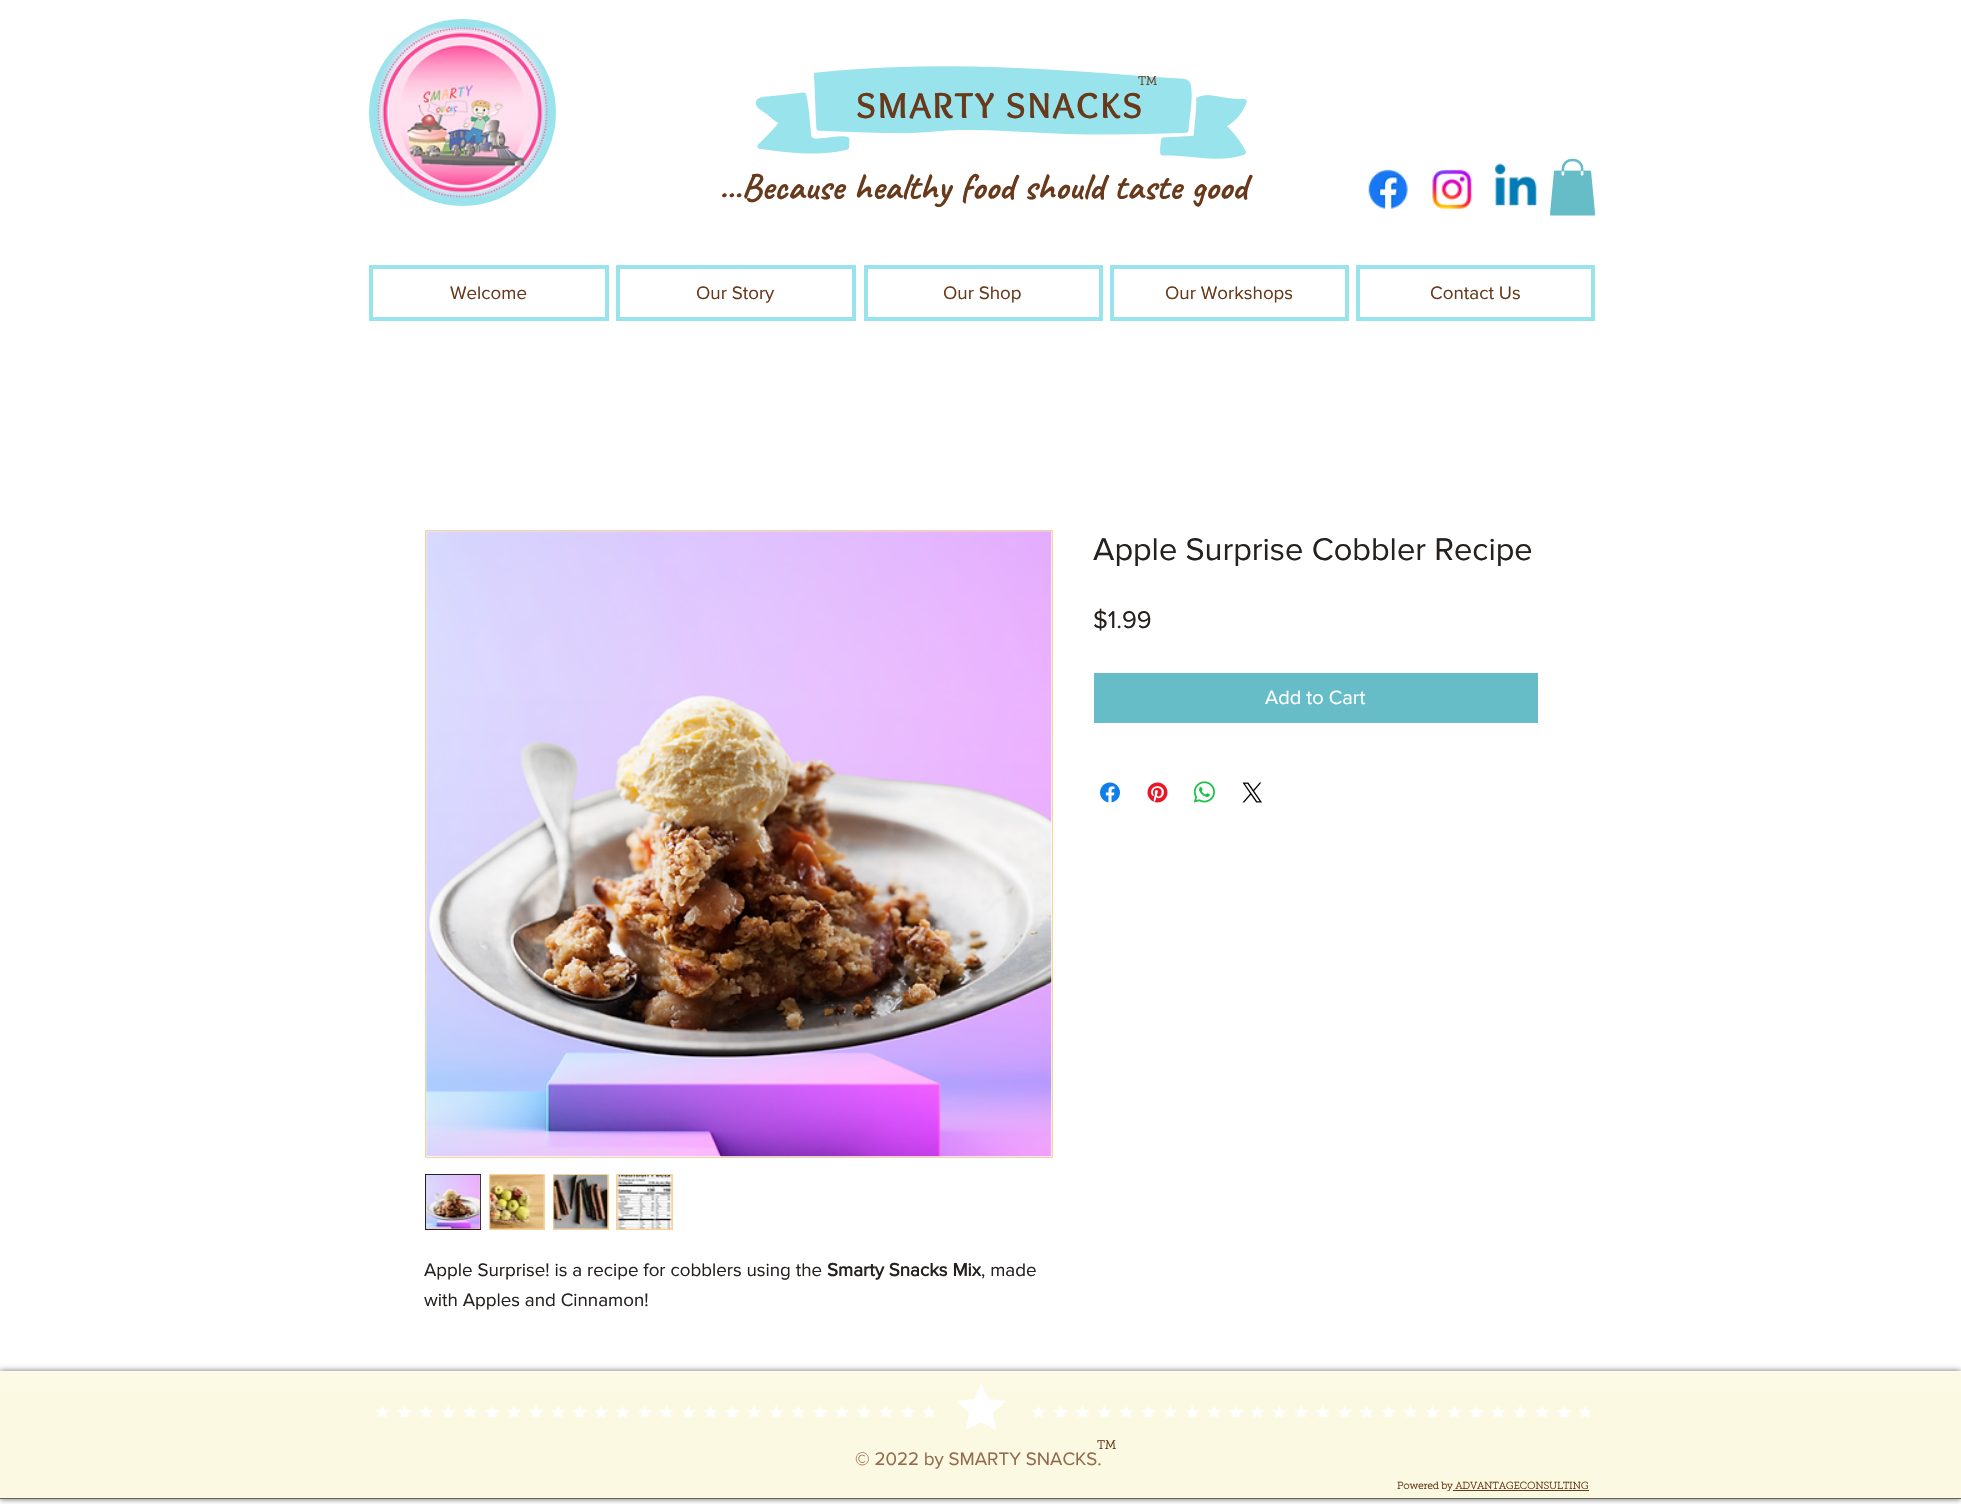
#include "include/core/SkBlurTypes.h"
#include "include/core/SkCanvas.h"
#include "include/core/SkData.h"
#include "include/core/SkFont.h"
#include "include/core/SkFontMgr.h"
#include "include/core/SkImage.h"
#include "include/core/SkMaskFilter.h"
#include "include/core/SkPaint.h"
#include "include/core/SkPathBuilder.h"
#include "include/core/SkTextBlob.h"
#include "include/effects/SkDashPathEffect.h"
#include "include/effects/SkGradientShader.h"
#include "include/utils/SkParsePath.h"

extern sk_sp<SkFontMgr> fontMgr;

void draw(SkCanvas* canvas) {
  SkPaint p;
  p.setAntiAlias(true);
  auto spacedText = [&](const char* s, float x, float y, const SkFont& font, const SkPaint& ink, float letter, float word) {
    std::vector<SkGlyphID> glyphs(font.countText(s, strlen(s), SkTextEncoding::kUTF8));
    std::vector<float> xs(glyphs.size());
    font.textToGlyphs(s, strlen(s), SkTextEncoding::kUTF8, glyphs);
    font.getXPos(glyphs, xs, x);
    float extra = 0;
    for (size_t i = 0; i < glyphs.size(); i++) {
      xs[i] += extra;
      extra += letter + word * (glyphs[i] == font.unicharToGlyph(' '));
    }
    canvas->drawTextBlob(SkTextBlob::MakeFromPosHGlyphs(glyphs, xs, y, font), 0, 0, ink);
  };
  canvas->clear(SK_ColorWHITE);
  p.setColor(SkColorSetRGB(153, 227, 236));
  canvas->drawCircle(462.5f, 112.5f, 93.5f, p);
  canvas->drawImageRect(SkImages::DeferredFromEncodedData(SkData::MakeFromFileName("images/1.png")), SkRect::MakeLTRB(377, 27, 548, 198), SkSamplingOptions());
  canvas->drawImageRect(SkImages::DeferredFromEncodedData(SkData::MakeFromFileName("images/2.png")), SkRect::MakeLTRB(755, 66, 1247, 159), SkSamplingOptions());
  canvas->drawImageRect(SkImages::DeferredFromEncodedData(SkData::MakeFromFileName("images/3.png")), SkRect::MakeLTRB(1368, 169, 1408, 209), SkSamplingOptions());
  canvas->drawImageRect(SkImages::DeferredFromEncodedData(SkData::MakeFromFileName("images/4.png")), SkRect::MakeLTRB(1432, 169, 1472, 209), SkSamplingOptions());
  canvas->drawImageRect(SkImages::DeferredFromEncodedData(SkData::MakeFromFileName("images/5.png")), SkRect::MakeLTRB(1494, 163, 1537, 206), SkSamplingOptions());
  canvas->drawImageRect(SkImages::DeferredFromEncodedData(SkData::MakeFromFileName("images/6.png")), SkRect::MakeLTRB(1549, 158, 1596, 216), SkSamplingOptions());
  p.setStyle(SkPaint::kStroke_Style);
  p.setStrokeWidth(4);
  canvas->drawRect(SkRect::MakeLTRB(371, 267, 607, 319), p);
  canvas->drawRect(SkRect::MakeLTRB(618, 267, 854, 319), p);
  canvas->drawRect(SkRect::MakeLTRB(866, 267, 1101, 319), p);
  canvas->drawRect(SkRect::MakeLTRB(1112, 267, 1347, 319), p);
  canvas->drawRect(SkRect::MakeLTRB(1358, 267, 1593, 319), p);
  p.setStyle(SkPaint::kFill_Style);
  p.setColor(SkColorSetRGB(103, 189, 199));
  canvas->drawRect(SkRect::MakeLTRB(1094, 673, 1538, 723), p);
  canvas->drawImageRect(SkImages::DeferredFromEncodedData(SkData::MakeFromFileName("images/7.png")), SkRect::MakeLTRB(1100, 782, 1120, 803), SkSamplingOptions());
  canvas->drawImageRect(SkImages::DeferredFromEncodedData(SkData::MakeFromFileName("images/8.png")), SkRect::MakeLTRB(1147, 782, 1168, 803), SkSamplingOptions());
  canvas->drawImageRect(SkImages::DeferredFromEncodedData(SkData::MakeFromFileName("images/9.png")), SkRect::MakeLTRB(1193, 781, 1215, 803), SkSamplingOptions());
  canvas->drawImageRect(SkImages::DeferredFromEncodedData(SkData::MakeFromFileName("images/10.png")), SkRect::MakeLTRB(1242, 782, 1262, 803), SkSamplingOptions());
  p.setStyle(SkPaint::kStroke_Style);
  p.setStrokeWidth(1);
  p.setColor(SkColorSetRGB(249, 209, 149));
  canvas->drawRect(SkRect::MakeLTRB(425.5f, 530.5f, 1052.5f, 1157.5f), p);
  canvas->drawImageRect(SkImages::DeferredFromEncodedData(SkData::MakeFromFileName("images/11.png")), SkRect::MakeLTRB(426, 531, 1052, 1157), SkSamplingOptions());
  p.setStyle(SkPaint::kFill_Style);
  canvas->drawRect(SkRect::MakeLTRB(425.5f, 1174.5f, 480.5f, 1229.5f), p);
  p.setStyle(SkPaint::kStroke_Style);
  p.setColor(SkColorSetRGB(36, 33, 31));
  canvas->drawRect(SkRect::MakeLTRB(425.5f, 1174.5f, 480.5f, 1229.5f), p);
  canvas->drawImageRect(SkImages::DeferredFromEncodedData(SkData::MakeFromFileName("images/12.png")), SkRect::MakeLTRB(426, 1175, 481, 1229), SkSamplingOptions());
  p.setStyle(SkPaint::kFill_Style);
  p.setColor(SkColorSetRGB(249, 209, 149));
  canvas->drawRect(SkRect::MakeLTRB(489, 1174, 545, 1230), p);
  canvas->drawImageRect(SkImages::DeferredFromEncodedData(SkData::MakeFromFileName("images/13.png")), SkRect::MakeLTRB(489, 1175, 544, 1229), SkSamplingOptions());
  canvas->drawRect(SkRect::MakeLTRB(553, 1174, 609, 1230), p);
  canvas->drawImageRect(SkImages::DeferredFromEncodedData(SkData::MakeFromFileName("images/14.png")), SkRect::MakeLTRB(553, 1175, 608, 1229), SkSamplingOptions());
  canvas->drawRect(SkRect::MakeLTRB(616, 1174, 673, 1230), p);
  canvas->drawImageRect(SkImages::DeferredFromEncodedData(SkData::MakeFromFileName("images/15.png")), SkRect::MakeLTRB(617, 1175, 672, 1229), SkSamplingOptions());
  canvas->save();
  canvas->clipPath(SkPathBuilder(SkPathFillType::kEvenOdd).moveTo(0, 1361).lineTo(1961, 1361).lineTo(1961, 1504).lineTo(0, 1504).close().moveTo(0, 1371).lineTo(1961, 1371).lineTo(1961, 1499).lineTo(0, 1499).close().detach(), true);
  p.setColor(SkColorSetARGB(153, 0, 0, 0));
  p.setMaskFilter(SkMaskFilter::MakeBlur(kNormal_SkBlurStyle, 3));
  canvas->drawRect(SkRect::MakeLTRB(0, 1371, 1961, 1499), p);
  p.setMaskFilter(nullptr);
  canvas->restore();
  p.setColor(SkColorSetARGB(115, 247, 240, 176));
  canvas->drawRect(SkRect::MakeLTRB(0, 1371, 1961, 1499), p);
  canvas->drawImageRect(SkImages::DeferredFromEncodedData(SkData::MakeFromFileName("images/16.png")), SkRect::MakeLTRB(0, 1371, 1961, 1499), SkSamplingOptions());
  p.setColor(SkColorSetARGB(153, 0, 0, 0));
  canvas->drawRect(SkRect::MakeLTRB(0, 1498, 1961, 1499), p);
  p.setColor(SkColorSetARGB(153, 255, 255, 255));
  canvas->drawRect(SkRect::MakeLTRB(0, 1371, 1961, 1372), p);
  canvas->drawImageRect(SkImages::DeferredFromEncodedData(SkData::MakeFromFileName("images/17.png")), SkRect::MakeLTRB(375, 1405, 934, 1418), SkSamplingOptions());
  p.setColor(SK_ColorWHITE);
  canvas->drawPath(SkPathBuilder().moveTo(981, 1384).lineTo(989, 1399).lineTo(1006, 1401).lineTo(993, 1413).lineTo(996, 1430).lineTo(981, 1422).lineTo(966, 1430).lineTo(969, 1413).lineTo(957, 1401).lineTo(974, 1399).close().detach(), p);
  canvas->drawImageRect(SkImages::DeferredFromEncodedData(SkData::MakeFromFileName("images/18.png")), SkRect::MakeLTRB(1031, 1405, 1590, 1418), SkSamplingOptions());
  p.setColor(SkColorSetRGB(104, 57, 26));
  canvas->drawRect(SkRect::MakeLTRB(1453, 1490, 1589, 1491), p);
  SkFont font1(fontMgr->matchFamilyStyle("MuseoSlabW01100", SkFontStyle::Bold()), 12);
  font1.setSubpixel(true);
  canvas->drawString("TM", 1138, 85, font1, p);
  SkFont font2(fontMgr->matchFamilyStyle("Overlock", SkFontStyle::Bold()), 37.5f);
  font2.setSubpixel(true);
  spacedText("SMARTY SNACKS", 856, 118, font2, p, 1.9f, 0);
  SkFont font3(fontMgr->matchFamilyStyle("Caveat", SkFontStyle::Bold()), 37.5f);
  font3.setSubpixel(true);
  spacedText("...Because healthy food should taste good", 719, 199, font3, p, 0, 1);
  SkFont font4(fontMgr->matchFamilyStyle("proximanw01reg", SkFontStyle::Normal()), 18.75f);
  font4.setSubpixel(true);
  canvas->drawString("Welcome", 450, 299, font4, p);
  canvas->drawString("Our Story", 696, 299, font4, p);
  canvas->drawString("Our Shop", 943, 299, font4, p);
  canvas->drawString("Our Workshops", 1165, 299, font4, p);
  canvas->drawString("Contact Us", 1430, 299, font4, p);
  SkFont font5(fontMgr->matchFamilyStyle("proximanw01reg", SkFontStyle::Normal()), 32.5f);
  font5.setSubpixel(true);
  p.setColor(SkColorSetRGB(36, 33, 31));
  canvas->drawString("Apple Surprise Cobbler Recipe", 1093, 560, font5, p);
  SkFont font6(fontMgr->matchFamilyStyle("proximanw01reg", SkFontStyle::Normal()), 25);
  font6.setSubpixel(true);
  canvas->drawString("$1.99", 1093, 628, font6, p);
  SkFont font7(fontMgr->matchFamilyStyle("proximanw01reg", SkFontStyle::Normal()), 20);
  font7.setSubpixel(true);
  p.setColor(SK_ColorWHITE);
  canvas->drawString("Add to Cart", 1265, 704, font7, p);
  p.setColor(SkColorSetRGB(36, 33, 31));
  canvas->drawString("Apple Surprise! is a recipe for cobblers using the", 424, 1276, font4, p);
  SkFont font8(fontMgr->matchFamilyStyle("proximanw01reg", SkFontStyle::Bold()), 18.75f);
  font8.setSubpixel(true);
  canvas->drawString("Smarty Snacks Mix", 827, 1276, font8, p);
  canvas->drawString(", made", 981, 1276, font4, p);
  canvas->drawString("with Apples and Cinnamon!", 424, 1306, font4, p);
  p.setColor(SkColorSetRGB(104, 57, 26));
  canvas->drawString("TM", 1097, 1449, font1, p);
  p.setColor(SkColorSetRGB(148, 106, 78));
  canvas->drawString("© 2022 by SMARTY SNACKS.", 855, 1465, font4, p);
  SkFont font9(fontMgr->matchFamilyStyle("MuseoSlabW01100", SkFontStyle::Bold()), 10);
  font9.setSubpixel(true);
  p.setColor(SkColorSetRGB(104, 57, 26));
  canvas->drawString("Powered by ADVANTAGECONSULTING", 1397, 1489, font9, p);
}
